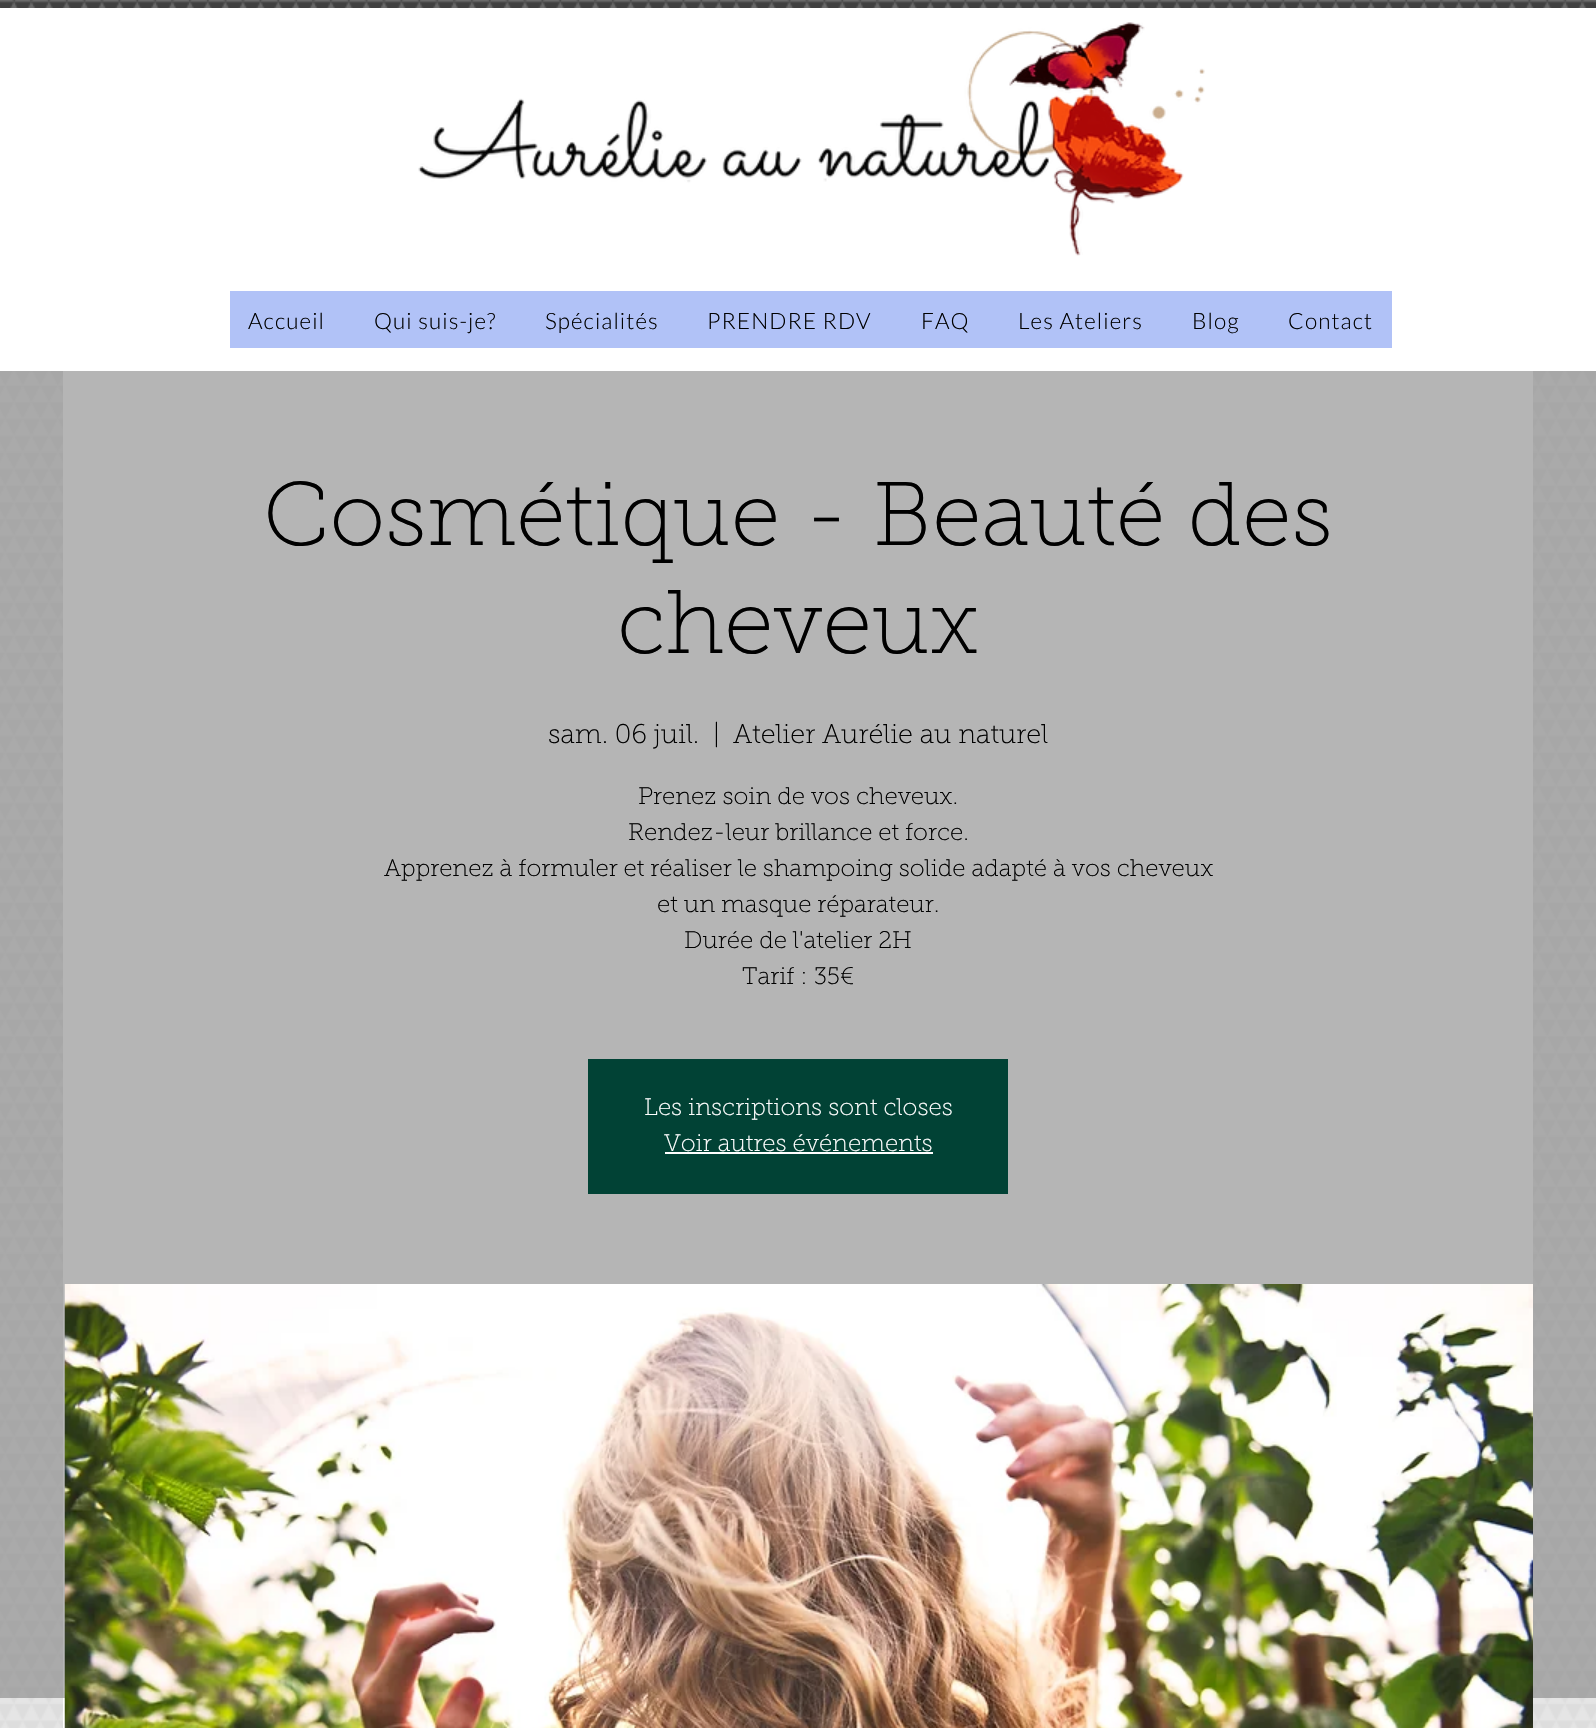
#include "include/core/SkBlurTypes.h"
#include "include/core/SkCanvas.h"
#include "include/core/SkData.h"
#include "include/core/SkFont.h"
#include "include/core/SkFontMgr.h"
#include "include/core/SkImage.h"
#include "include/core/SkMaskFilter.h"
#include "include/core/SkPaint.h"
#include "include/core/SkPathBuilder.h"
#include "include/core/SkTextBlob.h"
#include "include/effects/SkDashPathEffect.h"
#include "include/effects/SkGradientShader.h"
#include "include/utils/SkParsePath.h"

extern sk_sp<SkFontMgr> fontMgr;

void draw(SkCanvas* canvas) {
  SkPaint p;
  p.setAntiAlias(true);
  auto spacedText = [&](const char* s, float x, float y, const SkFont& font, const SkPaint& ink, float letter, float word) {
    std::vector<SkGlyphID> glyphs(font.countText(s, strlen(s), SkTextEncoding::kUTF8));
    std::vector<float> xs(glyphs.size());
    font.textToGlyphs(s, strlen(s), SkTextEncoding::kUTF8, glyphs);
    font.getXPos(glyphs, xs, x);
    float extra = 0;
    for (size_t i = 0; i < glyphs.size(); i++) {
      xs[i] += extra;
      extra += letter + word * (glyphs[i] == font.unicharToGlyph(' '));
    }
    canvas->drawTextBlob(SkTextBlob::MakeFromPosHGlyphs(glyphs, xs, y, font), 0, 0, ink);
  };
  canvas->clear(SkColorSetRGB(64, 64, 64));
  canvas->drawImageRect(SkImages::DeferredFromEncodedData(SkData::MakeFromFileName("images/1.png")), SkRect::MakeLTRB(0, 0, 1596, 1728), SkSamplingOptions());
  p.setColor(SK_ColorWHITE);
  canvas->drawRect(SkRect::MakeLTRB(0, 8, 1596, 371), p);
  canvas->drawImageRect(SkImages::DeferredFromEncodedData(SkData::MakeFromFileName("images/2.png")), SkRect::MakeLTRB(418, 22, 1205, 256), SkSamplingOptions());
  p.setColor(SkColorSetRGB(177, 194, 247));
  canvas->drawRect(SkRect::MakeLTRB(230, 291, 1392, 348), p);
  p.setColor(SK_ColorWHITE);
  canvas->drawRect(SkRect::MakeLTRB(63, 371, 1533, 1728), p);
  p.setColor(SkColorSetARGB(209, 255, 255, 255));
  canvas->drawRect(SkRect::MakeLTRB(0, 371, 1596, 1728), p);
  p.setColor(SkColorSetARGB(148, 128, 128, 128));
  canvas->drawRect(SkRect::MakeLTRB(0, 371, 1596, 1698), p);
  p.setColor(SkColorSetRGB(1, 66, 53));
  canvas->drawRect(SkRect::MakeLTRB(588, 1059, 1008, 1194), p);
  p.setColor(SK_ColorWHITE);
  canvas->drawRect(SkRect::MakeLTRB(665, 1152, 933, 1154), p);
  canvas->drawImageRect(SkImages::DeferredFromEncodedData(SkData::MakeFromFileName("images/3.png")), SkRect::MakeLTRB(64, 1284, 1533, 1728), SkSamplingOptions());
  SkFont font1(fontMgr->matchFamilyStyle("Lato", SkFontStyle(300, SkFontStyle::kNormal_Width, SkFontStyle::kUpright_Slant)), 22.5f);
  font1.setSubpixel(true);
  p.setColor(SK_ColorBLACK);
  spacedText("Accueil", 248, 329, font1, p, 1.1f, 0);
  spacedText("Qui suis-je?", 374, 329, font1, p, 1.1f, 0);
  spacedText("Spécialités", 545, 329, font1, p, 1.1f, 0);
  spacedText("PRENDRE RDV", 707, 329, font1, p, 1.1f, 0);
  spacedText("FAQ", 921, 329, font1, p, 1.1f, 0);
  spacedText("Les Ateliers", 1018, 329, font1, p, 1.1f, 0);
  spacedText("Blog", 1192, 329, font1, p, 1.1f, 0);
  spacedText("Contact", 1288, 329, font1, p, 1.1f, 0);
  SkFont font2(fontMgr->matchFamilyStyle("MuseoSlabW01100", SkFontStyle(100, SkFontStyle::kNormal_Width, SkFontStyle::kUpright_Slant)), 90);
  font2.setSubpixel(true);
  canvas->drawString("Cosmétique - Beauté des", 263, 545, font2, p);
  canvas->drawString("cheveux", 617, 653, font2, p);
  SkFont font3(fontMgr->matchFamilyStyle("MuseoSlabW01100", SkFontStyle(100, SkFontStyle::kNormal_Width, SkFontStyle::kUpright_Slant)), 27);
  font3.setSubpixel(true);
  canvas->drawString("sam. 06 juil.", 548, 743, font3, p);
  canvas->drawString("|", 713, 743, font3, p);
  canvas->drawString("Atelier Aurélie au naturel", 733, 743, font3, p);
  SkFont font4(fontMgr->matchFamilyStyle("MuseoSlabW01100", SkFontStyle(100, SkFontStyle::kNormal_Width, SkFontStyle::kUpright_Slant)), 24);
  font4.setSubpixel(true);
  canvas->drawString("Prenez soin de vos cheveux.", 638, 804, font4, p);
  canvas->drawString("Rendez-leur brillance et force.", 628, 840, font4, p);
  canvas->drawString("Apprenez à formuler et réaliser le shampoing solide adapté à vos cheveux", 384, 876, font4, p);
  canvas->drawString("et un masque réparateur.", 657, 912, font4, p);
  canvas->drawString("Durée de l'atelier 2H", 684, 948, font4, p);
  canvas->drawString("Tarif : 35€", 742, 984, font4, p);
  p.setColor(SK_ColorWHITE);
  canvas->drawString("Les inscriptions sont closes", 644, 1115, font4, p);
  canvas->drawString("Voir autres événements", 664, 1151, font4, p);
}
